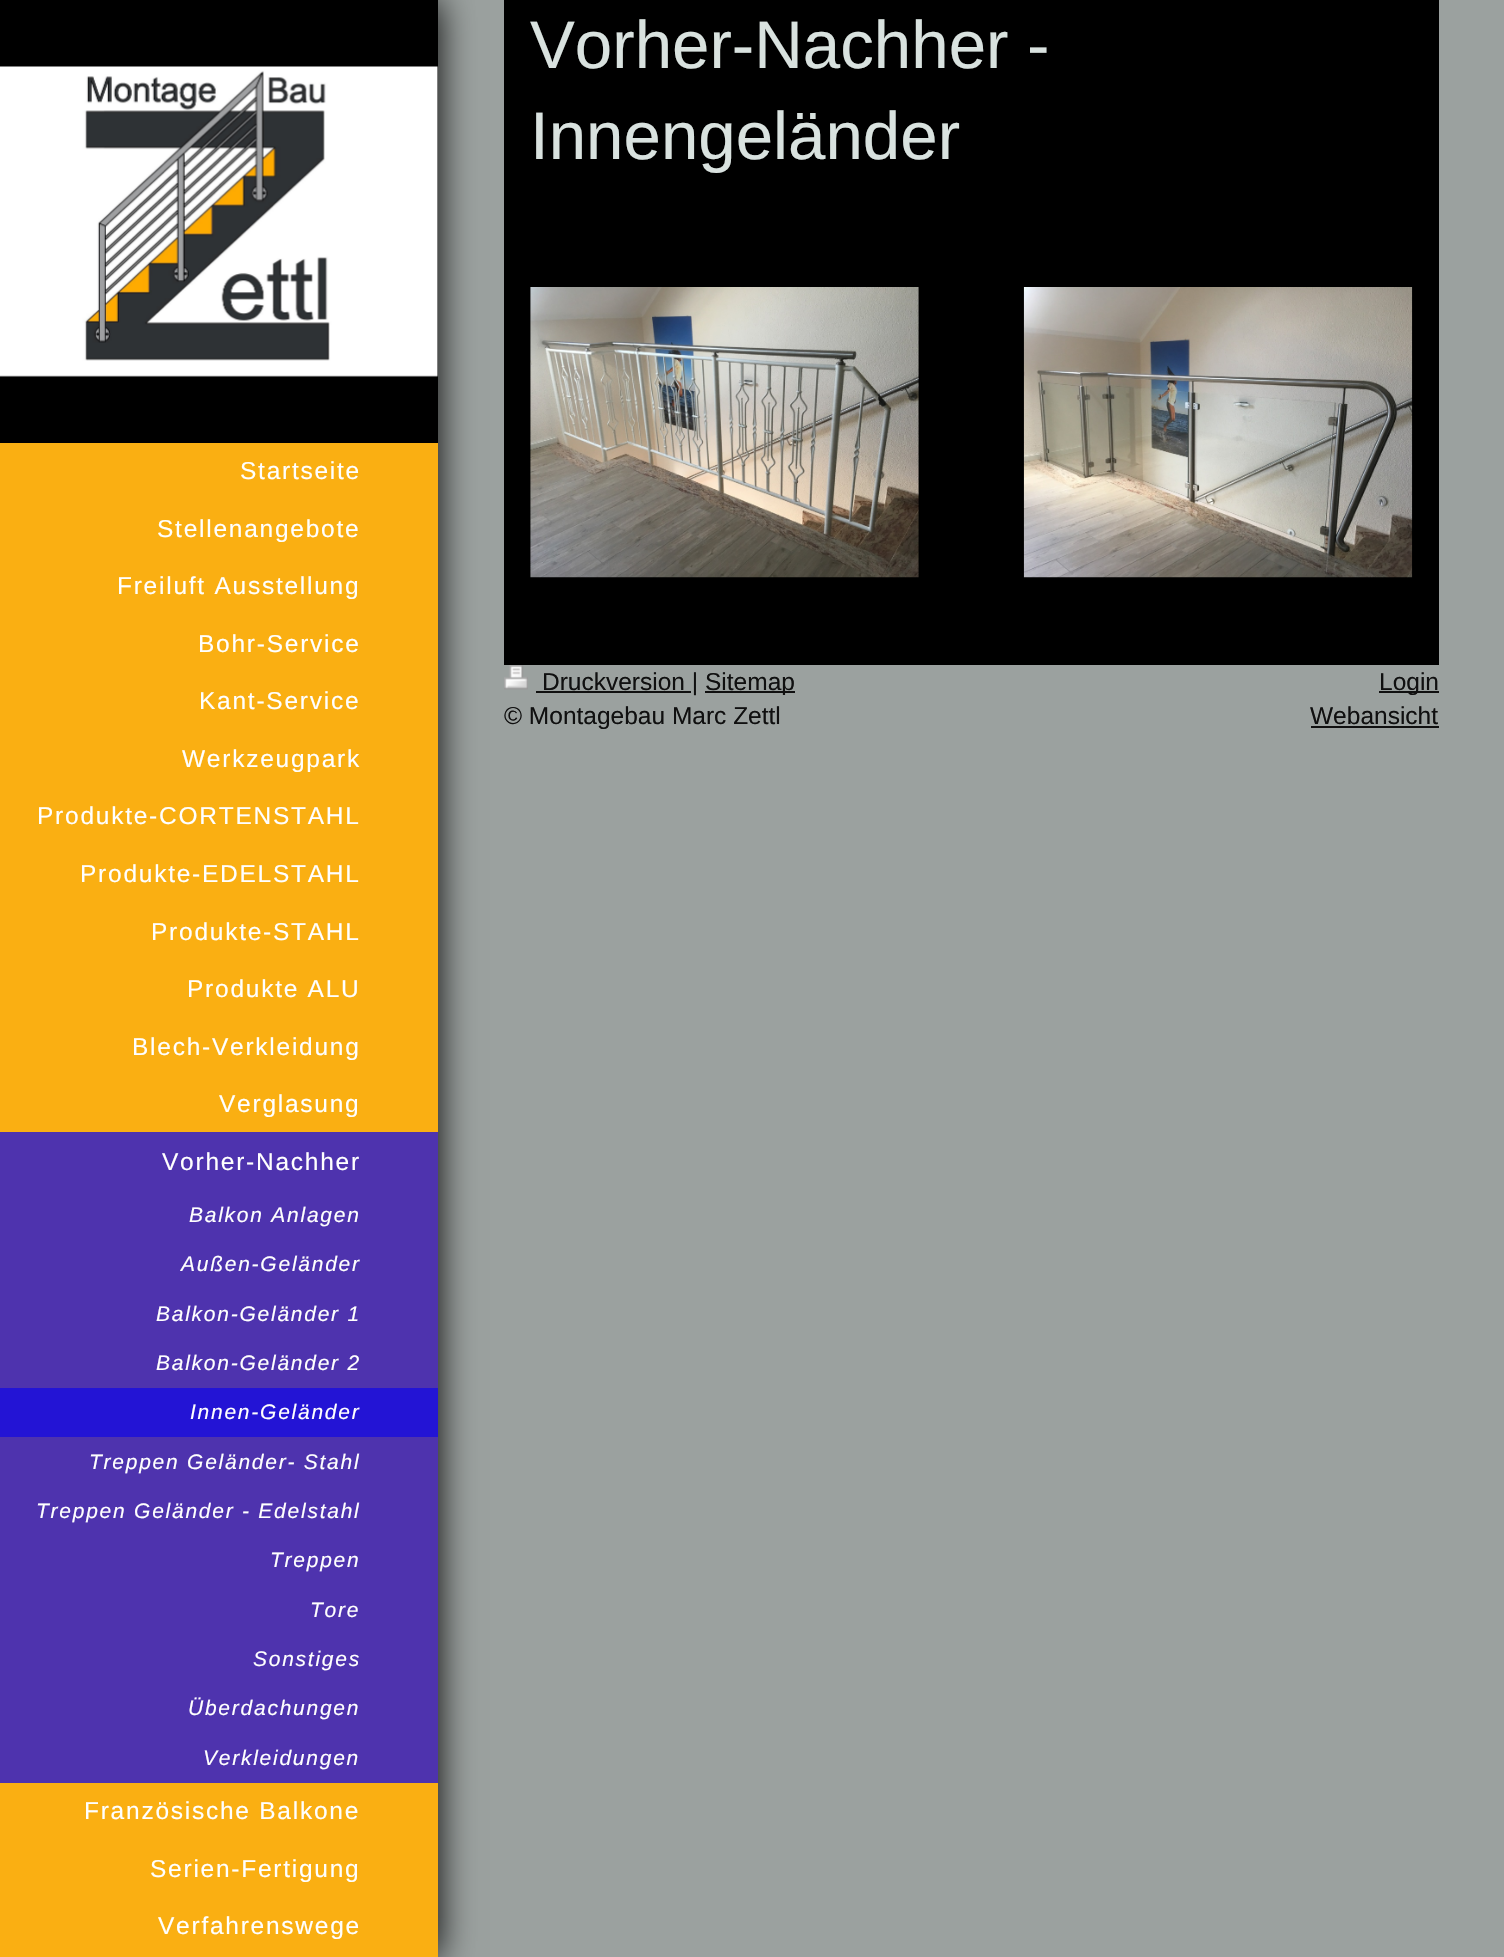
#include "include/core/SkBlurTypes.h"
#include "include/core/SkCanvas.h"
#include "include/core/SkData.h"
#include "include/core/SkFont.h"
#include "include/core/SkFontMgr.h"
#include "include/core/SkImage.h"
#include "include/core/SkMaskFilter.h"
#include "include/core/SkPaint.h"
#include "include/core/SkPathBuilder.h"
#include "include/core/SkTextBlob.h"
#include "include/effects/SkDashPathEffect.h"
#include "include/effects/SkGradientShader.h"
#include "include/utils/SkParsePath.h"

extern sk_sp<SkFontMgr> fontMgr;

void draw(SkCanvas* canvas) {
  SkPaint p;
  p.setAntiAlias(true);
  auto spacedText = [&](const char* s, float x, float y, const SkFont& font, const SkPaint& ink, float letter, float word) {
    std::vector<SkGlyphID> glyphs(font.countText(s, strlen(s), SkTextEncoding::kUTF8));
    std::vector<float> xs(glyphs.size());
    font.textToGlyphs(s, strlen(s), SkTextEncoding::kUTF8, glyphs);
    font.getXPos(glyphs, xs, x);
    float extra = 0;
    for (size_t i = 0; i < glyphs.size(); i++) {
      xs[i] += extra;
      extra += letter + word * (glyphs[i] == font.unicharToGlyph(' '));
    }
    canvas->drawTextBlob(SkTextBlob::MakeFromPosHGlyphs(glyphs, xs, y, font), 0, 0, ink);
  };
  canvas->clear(SkColorSetRGB(155, 161, 159));
  p.setColor(SK_ColorBLACK);
  p.setMaskFilter(SkMaskFilter::MakeBlur(kNormal_SkBlurStyle, 17.5f));
  canvas->drawRect(SkRect::MakeLTRB(0, 0, 438, 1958), p);
  p.setMaskFilter(nullptr);
  canvas->drawRect(SkRect::MakeLTRB(504, 0, 1439, 665), p);
  canvas->drawImageRect(SkImages::DeferredFromEncodedData(SkData::MakeFromFileName("images/1.png")), SkRect::MakeLTRB(530, 287, 919, 578), SkSamplingOptions());
  canvas->drawImageRect(SkImages::DeferredFromEncodedData(SkData::MakeFromFileName("images/2.png")), SkRect::MakeLTRB(1023, 287, 1413, 578), SkSamplingOptions());
  canvas->drawImageRect(SkImages::DeferredFromEncodedData(SkData::MakeFromFileName("images/3.png")), SkRect::MakeLTRB(504, 665, 528, 690), SkSamplingOptions());
  p.setColor(SkColorSetRGB(16, 16, 16));
  canvas->drawRect(SkRect::MakeLTRB(536, 691, 691, 693), p);
  canvas->drawRect(SkRect::MakeLTRB(705, 691, 795, 693), p);
  canvas->drawRect(SkRect::MakeLTRB(1379, 691, 1439, 693), p);
  canvas->drawRect(SkRect::MakeLTRB(1311, 726, 1439, 728), p);
  p.setColor(SK_ColorBLACK);
  canvas->drawRect(SkRect::MakeLTRB(0, 0, 438, 443), p);
  canvas->drawImageRect(SkImages::DeferredFromEncodedData(SkData::MakeFromFileName("images/4.png")), SkRect::MakeLTRB(0, 66, 438, 377), SkSamplingOptions());
  p.setColor(SkColorSetRGB(250, 175, 18));
  canvas->drawRect(SkRect::MakeLTRB(0, 443, 438, 1957), p);
  p.setColor(SkColorSetRGB(78, 51, 174));
  canvas->drawRect(SkRect::MakeLTRB(0, 1132, 438, 1783), p);
  p.setColor(SkColorSetRGB(35, 20, 213));
  canvas->drawRect(SkRect::MakeLTRB(0, 1388, 438, 1437), p);
  SkFont font1(fontMgr->matchFamilyStyle("Liberation Sans", SkFontStyle::Normal()), 67.25f);
  font1.setSubpixel(true);
  p.setColor(SkColorSetRGB(217, 226, 223));
  canvas->drawString("Vorher-Nachher -", 530, 68, font1, p);
  canvas->drawString("Innengeländer", 530, 159, font1, p);
  SkFont font2(fontMgr->matchFamilyStyle("Liberation Sans", SkFontStyle::Normal()), 24.5f);
  font2.setSubpixel(true);
  p.setColor(SkColorSetRGB(16, 16, 16));
  canvas->drawString("Druckversion |", 542, 690, font2, p);
  canvas->drawString("Sitemap", 705, 690, font2, p);
  canvas->drawString("© Montagebau Marc Zettl", 504, 724, font2, p);
  canvas->drawString("Login", 1379, 690, font2, p);
  canvas->drawString("Webansicht", 1310, 724, font2, p);
  p.setColor(SK_ColorWHITE);
  spacedText("Startseite", 240, 479, font2, p, 1.75f, 0);
  spacedText("Stellenangebote", 157, 537, font2, p, 1.75f, 0);
  spacedText("Freiluft Ausstellung", 117, 594, font2, p, 1.75f, 0);
  spacedText("Bohr-Service", 198, 652, font2, p, 1.75f, 0);
  spacedText("Kant-Service", 199, 709, font2, p, 1.75f, 0);
  spacedText("Werkzeugpark", 182, 767, font2, p, 1.75f, 0);
  spacedText("Produkte-CORTENSTAHL", 37, 824, font2, p, 1.75f, 0);
  spacedText("Produkte-EDELSTAHL", 80, 882, font2, p, 1.75f, 0);
  spacedText("Produkte-STAHL", 151, 940, font2, p, 1.75f, 0);
  spacedText("Produkte ALU", 187, 997, font2, p, 1.75f, 0);
  spacedText("Blech-Verkleidung", 132, 1055, font2, p, 1.75f, 0);
  spacedText("Verglasung", 219, 1112, font2, p, 1.75f, 0);
  spacedText("Vorher-Nachher", 162, 1170, font2, p, 1.75f, 0);
  SkFont font3(fontMgr->matchFamilyStyle("Liberation Sans", SkFontStyle::Italic()), 21);
  font3.setSubpixel(true);
  spacedText("Balkon Anlagen", 189, 1222, font3, p, 1.75f, 0);
  spacedText("Außen-Geländer", 181, 1271, font3, p, 1.75f, 0);
  spacedText("Balkon-Geländer 1", 156, 1321, font3, p, 1.75f, 0);
  spacedText("Balkon-Geländer 2", 156, 1370, font3, p, 1.75f, 0);
  spacedText("Innen-Geländer", 190, 1419, font3, p, 1.75f, 0);
  spacedText("Treppen Geländer- Stahl", 89, 1469, font3, p, 1.75f, 0);
  spacedText("Treppen Geländer - Edelstahl", 36, 1518, font3, p, 1.75f, 0);
  spacedText("Treppen", 270, 1567, font3, p, 1.75f, 0);
  spacedText("Tore", 310, 1617, font3, p, 1.75f, 0);
  spacedText("Sonstiges", 253, 1666, font3, p, 1.75f, 0);
  spacedText("Überdachungen", 188, 1715, font3, p, 1.75f, 0);
  spacedText("Verkleidungen", 203, 1765, font3, p, 1.75f, 0);
  spacedText("Französische Balkone", 84, 1819, font2, p, 1.75f, 0);
  spacedText("Serien-Fertigung", 150, 1877, font2, p, 1.75f, 0);
  spacedText("Verfahrenswege", 158, 1934, font2, p, 1.75f, 0);
}
